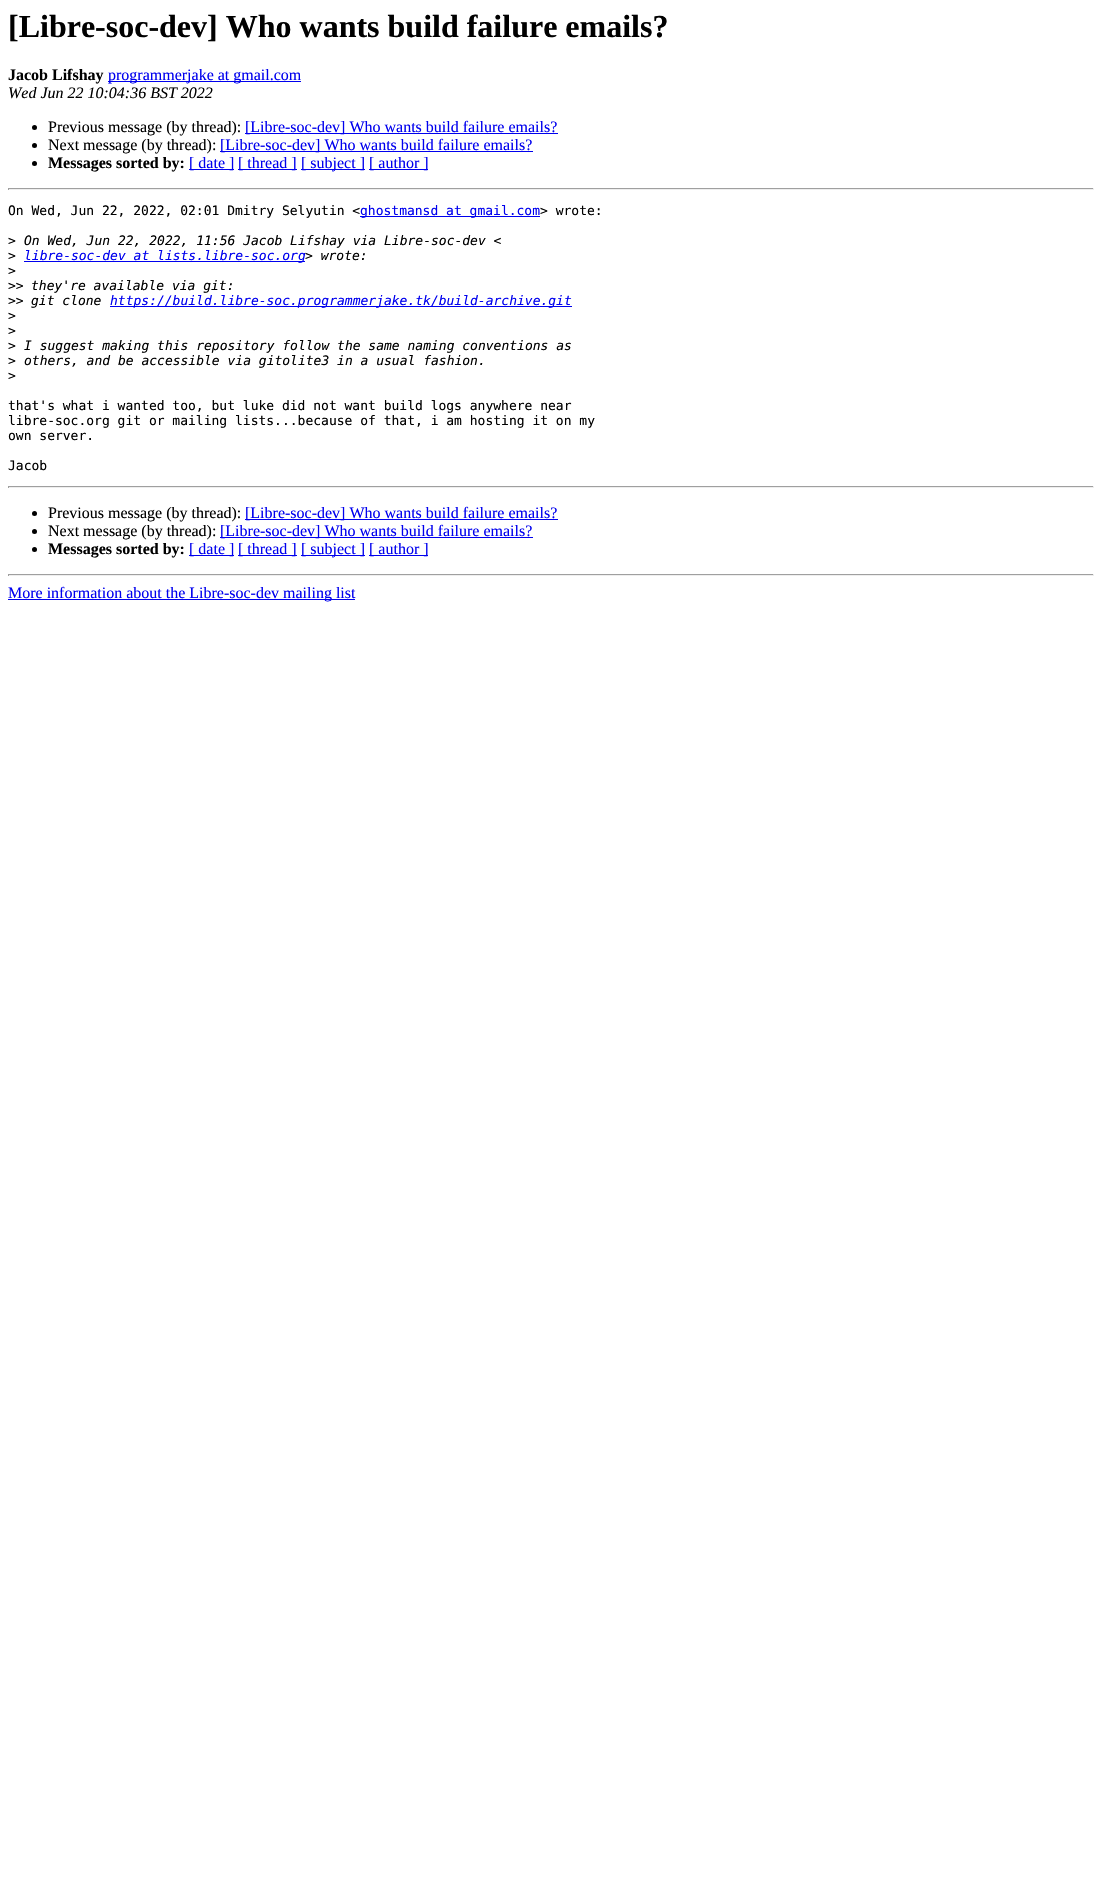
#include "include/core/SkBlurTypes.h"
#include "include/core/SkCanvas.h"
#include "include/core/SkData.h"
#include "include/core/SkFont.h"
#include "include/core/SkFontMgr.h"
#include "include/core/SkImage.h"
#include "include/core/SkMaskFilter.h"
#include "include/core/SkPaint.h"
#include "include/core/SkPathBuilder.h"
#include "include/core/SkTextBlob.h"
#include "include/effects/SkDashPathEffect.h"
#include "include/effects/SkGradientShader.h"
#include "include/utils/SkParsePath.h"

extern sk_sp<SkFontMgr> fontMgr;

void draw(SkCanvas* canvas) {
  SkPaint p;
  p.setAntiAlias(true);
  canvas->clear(SK_ColorWHITE);
  p.setColor(SkColorSetRGB(0, 0, 238));
  canvas->drawRect(SkRect::MakeLTRB(108, 81, 301, 82), p);
  p.setColor(SK_ColorBLACK);
  canvas->drawCircle(34.5f, 127.5f, 2.5f, p);
  p.setColor(SkColorSetRGB(0, 0, 238));
  canvas->drawRect(SkRect::MakeLTRB(245, 133, 558, 134), p);
  p.setColor(SK_ColorBLACK);
  canvas->drawCircle(34.5f, 145.5f, 2.5f, p);
  p.setColor(SkColorSetRGB(0, 0, 238));
  canvas->drawRect(SkRect::MakeLTRB(220, 151, 533, 152), p);
  p.setColor(SK_ColorBLACK);
  canvas->drawCircle(34.5f, 163.5f, 2.5f, p);
  p.setColor(SkColorSetRGB(0, 0, 238));
  canvas->drawRect(SkRect::MakeLTRB(189, 169, 234, 170), p);
  canvas->drawRect(SkRect::MakeLTRB(238, 169, 297, 170), p);
  canvas->drawRect(SkRect::MakeLTRB(301, 169, 365, 170), p);
  canvas->drawRect(SkRect::MakeLTRB(369, 169, 428, 170), p);
  p.setColor(SkColorSetRGB(159, 159, 159));
  canvas->drawRect(SkRect::MakeLTRB(8, 188, 1094, 189), p);
  p.setColor(SkColorSetRGB(238, 238, 238));
  canvas->drawRect(SkRect::MakeLTRB(1093, 188, 1094, 190), p);
  canvas->drawRect(SkRect::MakeLTRB(8, 189, 1094, 190), p);
  p.setColor(SkColorSetRGB(159, 159, 159));
  canvas->drawRect(SkRect::MakeLTRB(8, 188, 9, 190), p);
  p.setColor(SkColorSetRGB(0, 0, 238));
  canvas->drawRect(SkRect::MakeLTRB(360, 216, 540, 217), p);
  canvas->drawRect(SkRect::MakeLTRB(24, 261, 305, 262), p);
  canvas->drawRect(SkRect::MakeLTRB(110, 306, 572, 307), p);
  p.setColor(SkColorSetRGB(159, 159, 159));
  canvas->drawRect(SkRect::MakeLTRB(8, 486, 1094, 487), p);
  p.setColor(SkColorSetRGB(238, 238, 238));
  canvas->drawRect(SkRect::MakeLTRB(1093, 486, 1094, 488), p);
  canvas->drawRect(SkRect::MakeLTRB(8, 487, 1094, 488), p);
  p.setColor(SkColorSetRGB(159, 159, 159));
  canvas->drawRect(SkRect::MakeLTRB(8, 486, 9, 488), p);
  p.setColor(SK_ColorBLACK);
  canvas->drawCircle(34.5f, 513.5f, 2.5f, p);
  p.setColor(SkColorSetRGB(0, 0, 238));
  canvas->drawRect(SkRect::MakeLTRB(245, 519, 558, 520), p);
  p.setColor(SK_ColorBLACK);
  canvas->drawCircle(34.5f, 531.5f, 2.5f, p);
  p.setColor(SkColorSetRGB(0, 0, 238));
  canvas->drawRect(SkRect::MakeLTRB(220, 537, 533, 538), p);
  p.setColor(SK_ColorBLACK);
  canvas->drawCircle(34.5f, 549.5f, 2.5f, p);
  p.setColor(SkColorSetRGB(0, 0, 238));
  canvas->drawRect(SkRect::MakeLTRB(189, 555, 234, 556), p);
  canvas->drawRect(SkRect::MakeLTRB(238, 555, 297, 556), p);
  canvas->drawRect(SkRect::MakeLTRB(301, 555, 365, 556), p);
  canvas->drawRect(SkRect::MakeLTRB(369, 555, 428, 556), p);
  p.setColor(SkColorSetRGB(159, 159, 159));
  canvas->drawRect(SkRect::MakeLTRB(8, 574, 1094, 575), p);
  p.setColor(SkColorSetRGB(238, 238, 238));
  canvas->drawRect(SkRect::MakeLTRB(1093, 574, 1094, 576), p);
  canvas->drawRect(SkRect::MakeLTRB(8, 575, 1094, 576), p);
  p.setColor(SkColorSetRGB(159, 159, 159));
  canvas->drawRect(SkRect::MakeLTRB(8, 574, 9, 576), p);
  p.setColor(SkColorSetRGB(0, 0, 238));
  canvas->drawRect(SkRect::MakeLTRB(8, 599, 355, 600), p);
  SkFont font1(fontMgr->matchFamilyStyle("Liberation Serif", SkFontStyle::Bold()), 32);
  font1.setSubpixel(true);
  p.setColor(SK_ColorBLACK);
  canvas->drawString("[Libre-soc-dev] Who wants build failure emails?", 8, 37, font1, p);
  SkFont font2(fontMgr->matchFamilyStyle("Liberation Serif", SkFontStyle::Bold()), 16);
  font2.setSubpixel(true);
  canvas->drawString("Jacob Lifshay", 8, 80, font2, p);
  SkFont font3(fontMgr->matchFamilyStyle("Liberation Serif", SkFontStyle::Normal()), 16);
  font3.setSubpixel(true);
  p.setColor(SkColorSetRGB(0, 0, 238));
  canvas->drawString("programmerjake at gmail.com", 108, 80, font3, p);
  SkFont font4(fontMgr->matchFamilyStyle("Liberation Serif", SkFontStyle::Italic()), 16);
  font4.setSubpixel(true);
  p.setColor(SK_ColorBLACK);
  canvas->drawString("Wed Jun 22 10:04:36 BST 2022", 8, 98, font4, p);
  canvas->drawString("Previous message (by thread):", 48, 132, font3, p);
  p.setColor(SkColorSetRGB(0, 0, 238));
  canvas->drawString("[Libre-soc-dev] Who wants build failure emails?", 245, 132, font3, p);
  p.setColor(SK_ColorBLACK);
  canvas->drawString("Next message (by thread):", 48, 150, font3, p);
  p.setColor(SkColorSetRGB(0, 0, 238));
  canvas->drawString("[Libre-soc-dev] Who wants build failure emails?", 220, 150, font3, p);
  p.setColor(SK_ColorBLACK);
  canvas->drawString("Messages sorted by:", 48, 168, font2, p);
  p.setColor(SkColorSetRGB(0, 0, 238));
  canvas->drawString("[ date ]", 189, 168, font3, p);
  canvas->drawString("[ thread ]", 238, 168, font3, p);
  canvas->drawString("[ subject ]", 301, 168, font3, p);
  canvas->drawString("[ author ]", 369, 168, font3, p);
  SkFont font5(fontMgr->matchFamilyStyle("DejaVu Sans Mono", SkFontStyle::Normal()), 13);
  font5.setSubpixel(true);
  p.setColor(SK_ColorBLACK);
  canvas->drawString("On Wed, Jun 22, 2022, 02:01 Dmitry Selyutin <", 8, 215, font5, p);
  p.setColor(SkColorSetRGB(0, 0, 238));
  canvas->drawString("ghostmansd at gmail.com", 360, 215, font5, p);
  p.setColor(SK_ColorBLACK);
  canvas->drawString("> wrote:", 540, 215, font5, p);
  canvas->drawString(">", 8, 245, font5, p);
  SkFont font6(fontMgr->matchFamilyStyle("DejaVu Sans Mono", SkFontStyle::Italic()), 13);
  font6.setSubpixel(true);
  canvas->drawString("On Wed, Jun 22, 2022, 11:56 Jacob Lifshay via Libre-soc-dev <", 24, 245, font6, p);
  canvas->drawString(">", 8, 260, font5, p);
  p.setColor(SkColorSetRGB(0, 0, 238));
  canvas->drawString("libre-soc-dev at lists.libre-soc.org", 24, 260, font6, p);
  p.setColor(SK_ColorBLACK);
  canvas->drawString("> wrote:", 305, 260, font6, p);
  canvas->drawString(">", 8, 275, font5, p);
  canvas->drawString(">>", 8, 290, font5, p);
  canvas->drawString("they're available via git:", 31, 290, font6, p);
  canvas->drawString(">>", 8, 305, font5, p);
  canvas->drawString("git clone", 31, 305, font6, p);
  p.setColor(SkColorSetRGB(0, 0, 238));
  canvas->drawString("https://build.libre-soc.programmerjake.tk/build-archive.git", 110, 305, font6, p);
  p.setColor(SK_ColorBLACK);
  canvas->drawString(">", 8, 320, font5, p);
  canvas->drawString(">", 8, 335, font5, p);
  canvas->drawString(">", 8, 350, font5, p);
  canvas->drawString("I suggest making this repository follow the same naming conventions as", 24, 350, font6, p);
  canvas->drawString(">", 8, 365, font5, p);
  canvas->drawString("others, and be accessible via gitolite3 in a usual fashion.", 24, 365, font6, p);
  canvas->drawString(">", 8, 380, font5, p);
  canvas->drawString("that's what i wanted too, but luke did not want build logs anywhere near", 8, 410, font5, p);
  canvas->drawString("libre-soc.org git or mailing lists...because of that, i am hosting it on my", 8, 425, font5, p);
  canvas->drawString("own server.", 8, 440, font5, p);
  canvas->drawString("Jacob", 8, 470, font5, p);
  canvas->drawString("Previous message (by thread):", 48, 518, font3, p);
  p.setColor(SkColorSetRGB(0, 0, 238));
  canvas->drawString("[Libre-soc-dev] Who wants build failure emails?", 245, 518, font3, p);
  p.setColor(SK_ColorBLACK);
  canvas->drawString("Next message (by thread):", 48, 536, font3, p);
  p.setColor(SkColorSetRGB(0, 0, 238));
  canvas->drawString("[Libre-soc-dev] Who wants build failure emails?", 220, 536, font3, p);
  p.setColor(SK_ColorBLACK);
  canvas->drawString("Messages sorted by:", 48, 554, font2, p);
  p.setColor(SkColorSetRGB(0, 0, 238));
  canvas->drawString("[ date ]", 189, 554, font3, p);
  canvas->drawString("[ thread ]", 238, 554, font3, p);
  canvas->drawString("[ subject ]", 301, 554, font3, p);
  canvas->drawString("[ author ]", 369, 554, font3, p);
  canvas->drawString("More information about the Libre-soc-dev mailing list", 8, 598, font3, p);
}
